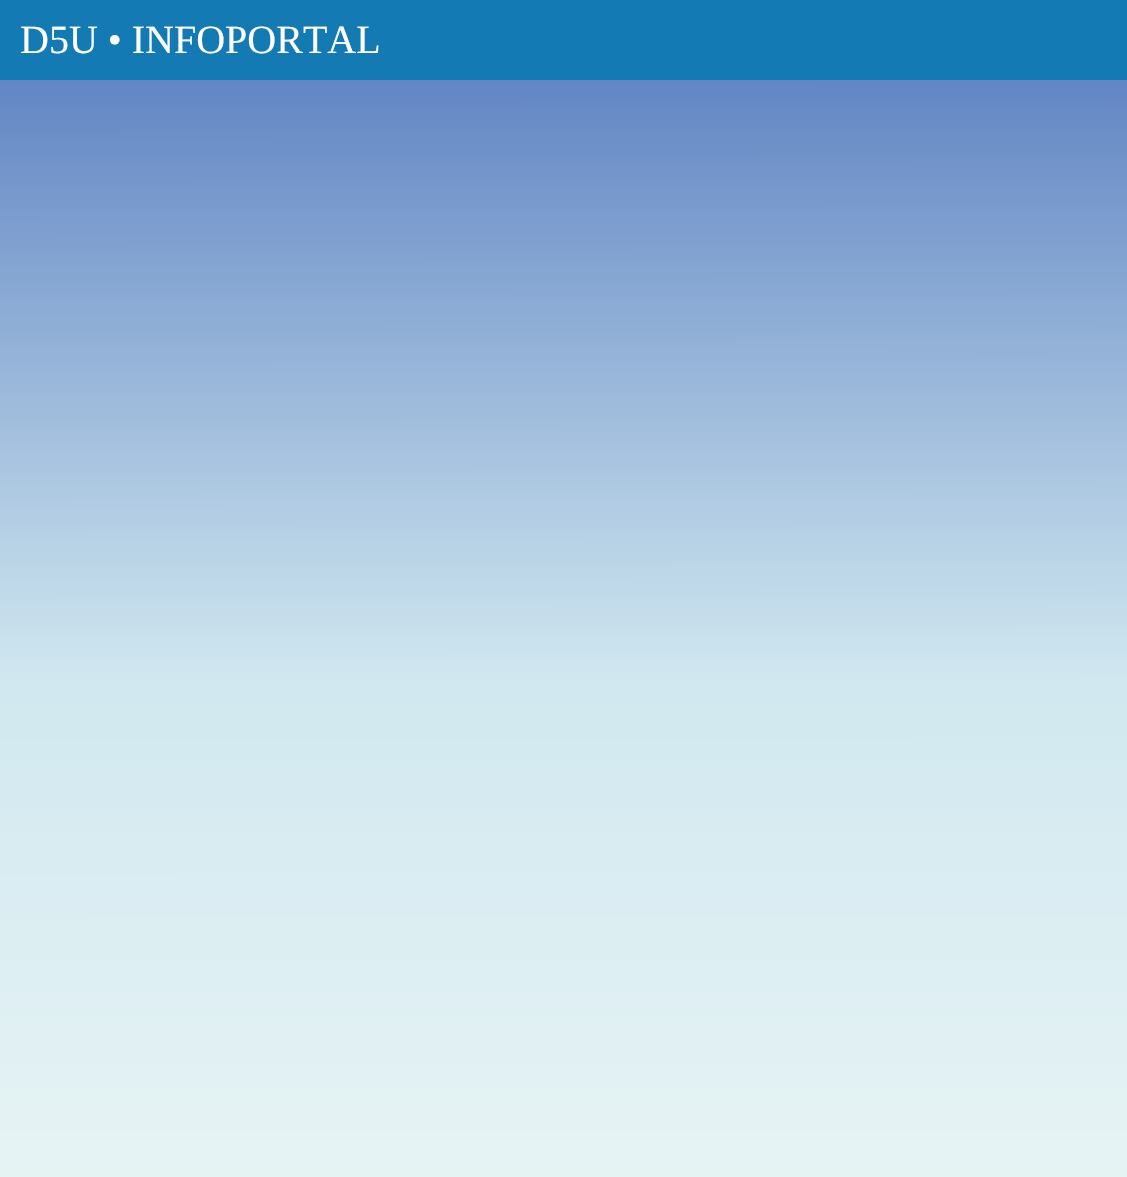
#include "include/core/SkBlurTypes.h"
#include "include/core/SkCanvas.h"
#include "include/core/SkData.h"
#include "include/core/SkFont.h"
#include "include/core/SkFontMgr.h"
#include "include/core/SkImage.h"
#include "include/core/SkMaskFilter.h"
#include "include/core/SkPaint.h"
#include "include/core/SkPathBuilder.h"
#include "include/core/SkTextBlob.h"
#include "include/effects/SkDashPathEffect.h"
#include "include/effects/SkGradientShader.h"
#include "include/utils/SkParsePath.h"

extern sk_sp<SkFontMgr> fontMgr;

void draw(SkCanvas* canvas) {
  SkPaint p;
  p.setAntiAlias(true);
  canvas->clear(SkColorSetRGB(20, 122, 179));
  {
    const SkColor colors[] = {SkColorSetRGB(98, 134, 196), SkColorSetRGB(209, 232, 240), SkColorSetRGB(235, 246, 245)};
    const float stops[] = {0, 0.5f, 1};
    const SkPoint ends[] = {{563, 80}, {564, 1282}};
    p.setShader(SkGradientShader::MakeLinear(ends, colors, stops, 3, SkTileMode::kClamp));
    p.setAlpha(255);
  }
  canvas->drawRect(SkRect::MakeLTRB(0, 80, 1127, 1177), p);
  SkFont font1(fontMgr->matchFamilyStyle("Liberation Serif", SkFontStyle::Normal()), 40);
  font1.setSubpixel(true);
  p.setShader(nullptr);
  p.setColor(SK_ColorWHITE);
  canvas->drawString("D5U • INFOPORTAL", 20, 53, font1, p);
}
